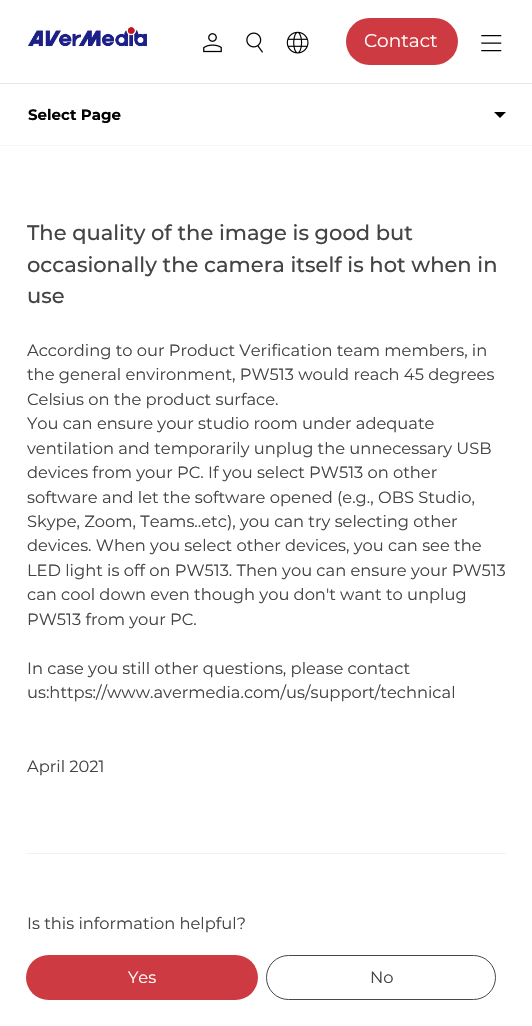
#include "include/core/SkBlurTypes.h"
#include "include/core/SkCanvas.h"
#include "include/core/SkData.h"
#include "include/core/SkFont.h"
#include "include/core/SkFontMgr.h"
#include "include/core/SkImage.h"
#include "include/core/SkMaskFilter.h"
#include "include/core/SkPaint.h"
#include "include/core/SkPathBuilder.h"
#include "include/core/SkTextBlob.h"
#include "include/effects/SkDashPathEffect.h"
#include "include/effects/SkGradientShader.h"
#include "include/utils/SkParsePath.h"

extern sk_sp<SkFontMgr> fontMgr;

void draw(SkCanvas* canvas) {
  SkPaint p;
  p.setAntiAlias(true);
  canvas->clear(SK_ColorWHITE);
  p.setColor(SkColorSetRGB(230, 230, 230));
  canvas->drawRect(SkRect::MakeLTRB(0, 83, 532, 84), p);
  canvas->drawImageRect(SkImages::DeferredFromEncodedData(SkData::MakeFromFileName("images/1.png")), SkRect::MakeLTRB(28, 27, 147, 47), SkSamplingOptions());
  canvas->drawImageRect(SkImages::DeferredFromEncodedData(SkData::MakeFromFileName("images/2.png")), SkRect::MakeLTRB(203, 33, 222, 53), SkSamplingOptions());
  canvas->drawImageRect(SkImages::DeferredFromEncodedData(SkData::MakeFromFileName("images/3.png")), SkRect::MakeLTRB(246, 32, 263, 53), SkSamplingOptions());
  canvas->drawImageRect(SkImages::DeferredFromEncodedData(SkData::MakeFromFileName("images/4.png")), SkRect::MakeLTRB(286, 31, 309, 54), SkSamplingOptions());
  p.setColor(SkColorSetRGB(206, 58, 65));
  canvas->drawRoundRect(SkRect::MakeLTRB(346, 18, 458, 65), 23.5f, 23.5f, p);
  canvas->drawImageRect(SkImages::DeferredFromEncodedData(SkData::MakeFromFileName("images/5.png")), SkRect::MakeLTRB(481, 35, 502, 52), SkSamplingOptions());
  p.setColor(SK_ColorBLACK);
  canvas->drawPath(SkPathBuilder().moveTo(494, 112).lineTo(506, 112).lineTo(500, 118).close().detach(), p);
  p.setColor(SkColorSetRGB(245, 246, 248));
  canvas->drawRect(SkRect::MakeLTRB(0, 145, 532, 146), p);
  p.setColor(SkColorSetRGB(242, 242, 242));
  canvas->drawRect(SkRect::MakeLTRB(26, 853, 506, 854), p);
  p.setColor(SkColorSetRGB(206, 58, 65));
  canvas->drawRoundRect(SkRect::MakeLTRB(26, 955, 258, 1000), 22.5f, 22.5f, p);
  p.setStyle(SkPaint::kStroke_Style);
  p.setStrokeWidth(1);
  p.setColor(SkColorSetRGB(71, 71, 71));
  canvas->drawRoundRect(SkRect::MakeLTRB(266.5f, 955.5f, 495.5f, 999.5f), 22, 22, p);
  SkFont font1(fontMgr->matchFamilyStyle("Montserrat", SkFontStyle::Normal()), 18.5f);
  font1.setSubpixel(true);
  p.setStyle(SkPaint::kFill_Style);
  p.setColor(SK_ColorWHITE);
  canvas->drawString("Contact", 364, 47, font1, p);
  SkFont font2(fontMgr->matchFamilyStyle("Montserrat", SkFontStyle::Bold()), 15);
  font2.setSubpixel(true);
  p.setColor(SK_ColorBLACK);
  canvas->drawString("Select Page", 28, 120, font2, p);
  SkFont font3(fontMgr->matchFamilyStyle("Montserrat", SkFontStyle(500, SkFontStyle::kNormal_Width, SkFontStyle::kUpright_Slant)), 21);
  font3.setSubpixel(true);
  p.setColor(SkColorSetRGB(68, 68, 68));
  canvas->drawString("The quality of the image is good but", 27, 240, font3, p);
  canvas->drawString("occasionally the camera itself is hot when in", 27, 272, font3, p);
  canvas->drawString("use", 27, 303, font3, p);
  SkFont font4(fontMgr->matchFamilyStyle("Montserrat", SkFontStyle::Normal()), 16.3f);
  font4.setSubpixel(true);
  canvas->drawString("According to our Product Verification team members, in", 27, 356, font4, p);
  canvas->drawString("the general environment, PW513 would reach 45 degrees", 27, 380, font4, p);
  canvas->drawString("Celsius on the product surface.", 27, 405, font4, p);
  canvas->drawString("You can ensure your studio room under adequate", 27, 429, font4, p);
  canvas->drawString("ventilation and temporarily unplug the unnecessary USB", 27, 454, font4, p);
  canvas->drawString("devices from your PC. If you select PW513 on other", 27, 478, font4, p);
  canvas->drawString("software and let the software opened (e.g., OBS Studio,", 27, 503, font4, p);
  canvas->drawString("Skype, Zoom, Teams..etc), you can try selecting other", 27, 527, font4, p);
  canvas->drawString("devices. When you select other devices, you can see the", 27, 551, font4, p);
  canvas->drawString("LED light is off on PW513. Then you can ensure your PW513", 27, 576, font4, p);
  canvas->drawString("can cool down even though you don't want to unplug", 27, 600, font4, p);
  canvas->drawString("PW513 from your PC.", 27, 625, font4, p);
  canvas->drawString("In case you still other questions, please contact", 27, 674, font4, p);
  canvas->drawString("us:https://www.avermedia.com/us/support/technical", 27, 698, font4, p);
  canvas->drawString("April 2021", 27, 772, font4, p);
  canvas->drawString("Is this information helpful?", 27, 929, font4, p);
  p.setColor(SK_ColorWHITE);
  canvas->drawString("Yes", 128, 983, font4, p);
  p.setColor(SkColorSetRGB(68, 68, 68));
  canvas->drawString("No", 370, 983, font4, p);
}
